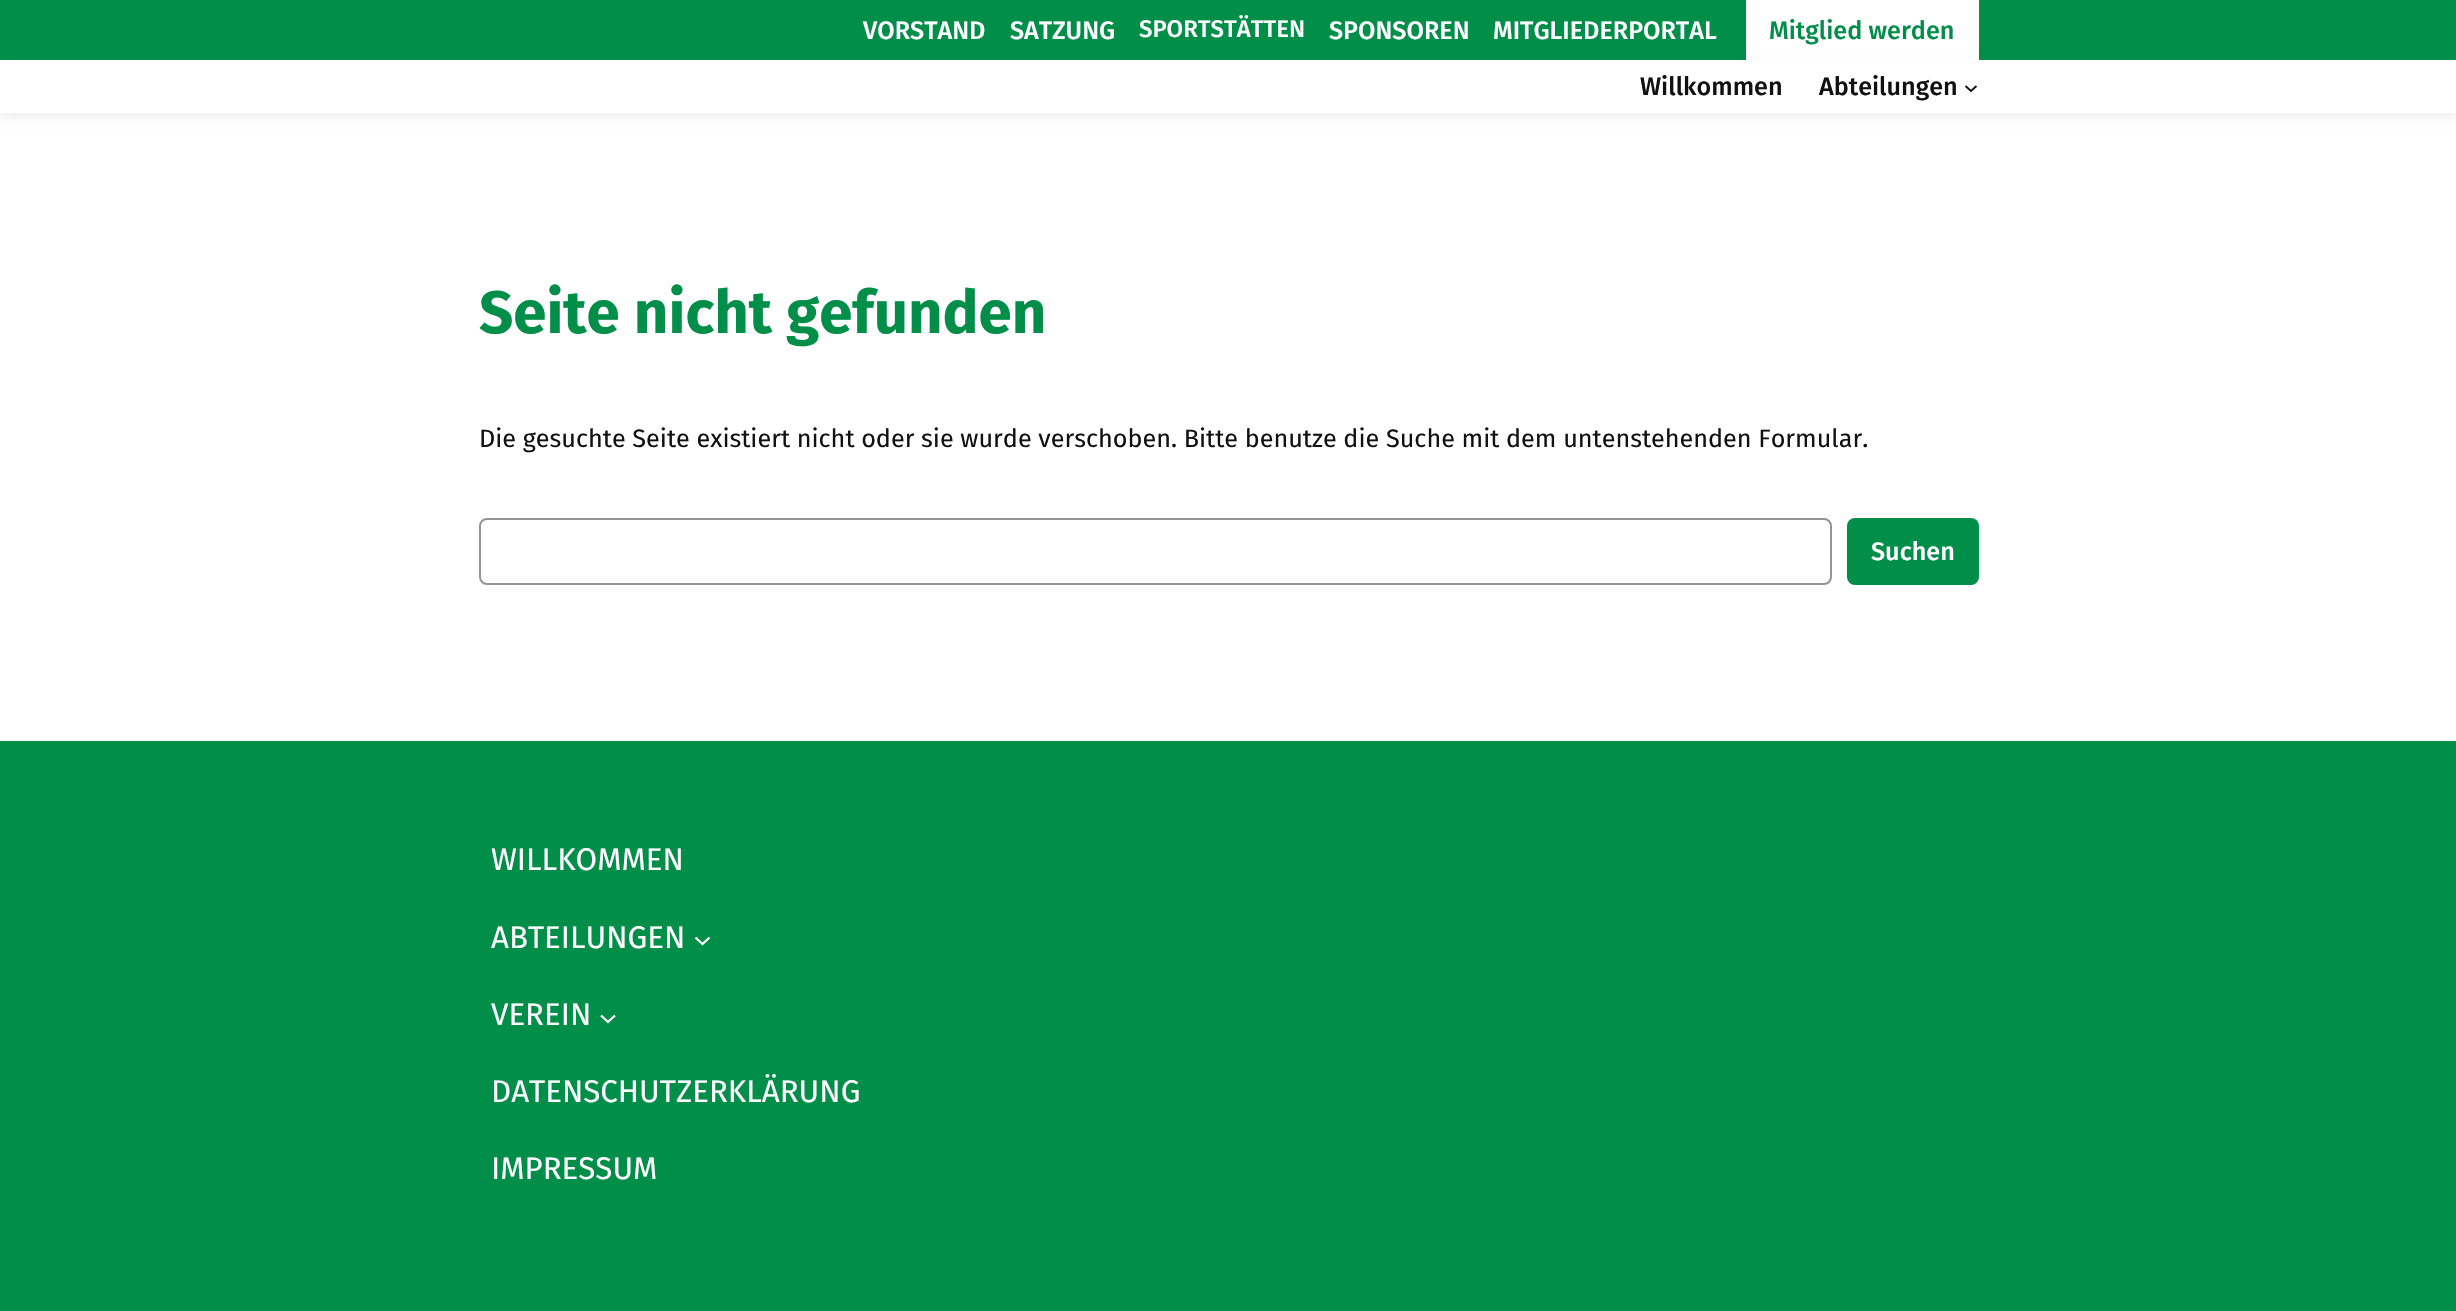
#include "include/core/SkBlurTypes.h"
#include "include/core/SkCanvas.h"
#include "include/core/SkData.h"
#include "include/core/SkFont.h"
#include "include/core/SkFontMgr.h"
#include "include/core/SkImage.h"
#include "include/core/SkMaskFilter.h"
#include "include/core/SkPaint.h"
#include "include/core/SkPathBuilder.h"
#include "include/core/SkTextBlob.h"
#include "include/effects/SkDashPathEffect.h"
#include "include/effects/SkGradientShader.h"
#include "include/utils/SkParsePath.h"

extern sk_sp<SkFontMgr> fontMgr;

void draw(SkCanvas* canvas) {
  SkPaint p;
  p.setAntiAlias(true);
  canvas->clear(SK_ColorWHITE);
  p.setColor(SkColorSetRGB(0, 142, 73));
  canvas->drawRect(SkRect::MakeLTRB(0, 0, 2456, 60), p);
  p.setColor(SK_ColorWHITE);
  canvas->drawRect(SkRect::MakeLTRB(1746, 0, 1979, 60), p);
  p.setColor(SkColorSetARGB(13, 0, 0, 0));
  p.setMaskFilter(SkMaskFilter::MakeBlur(kNormal_SkBlurStyle, 4.5f));
  canvas->drawRect(SkRect::MakeLTRB(0, 66, 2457, 119), p);
  p.setMaskFilter(nullptr);
  p.setColor(SK_ColorWHITE);
  canvas->drawRect(SkRect::MakeLTRB(0, 62, 2456, 113), p);
  p.setStyle(SkPaint::kStroke_Style);
  p.setStrokeWidth(1.9f);
  p.setColor(SkColorSetRGB(17, 17, 17));
  canvas->drawPath(SkPathBuilder().moveTo(1965.5f, 86).lineTo(1971, 91).lineTo(1976.5f, 86).detach(), p);
  p.setStrokeWidth(2);
  p.setColor(SkColorSetRGB(148, 148, 148));
  canvas->drawRoundRect(SkRect::MakeLTRB(480, 519, 1831, 584), 7, 7, p);
  p.setStyle(SkPaint::kFill_Style);
  p.setColor(SkColorSetRGB(0, 142, 73));
  canvas->drawRoundRect(SkRect::MakeLTRB(1847, 518, 1979, 585), 8, 8, p);
  canvas->drawRect(SkRect::MakeLTRB(0, 741, 2456, 1311), p);
  p.setStyle(SkPaint::kStroke_Style);
  p.setStrokeWidth(2.3f);
  p.setColor(SK_ColorWHITE);
  canvas->drawPath(SkPathBuilder().moveTo(695.5f, 937.5f).lineTo(702.5f, 944).lineTo(709.5f, 937.5f).detach(), p);
  canvas->drawPath(SkPathBuilder().moveTo(601, 1015.5f).lineTo(608, 1022).lineTo(615, 1015.5f).detach(), p);
  SkFont font1(fontMgr->matchFamilyStyle("Fira Sans", SkFontStyle(500, SkFontStyle::kNormal_Width, SkFontStyle::kUpright_Slant)), 25.2f);
  font1.setSubpixel(true);
  p.setStyle(SkPaint::kFill_Style);
  canvas->drawString("VORSTAND", 863, 39, font1, p);
  canvas->drawString("SATZUNG", 1010, 39, font1, p);
  SkFont font2(fontMgr->matchFamilyStyle("Fira Sans", SkFontStyle(500, SkFontStyle::kNormal_Width, SkFontStyle::kUpright_Slant)), 24);
  font2.setSubpixel(true);
  canvas->drawString("SPORTSTÄTTEN", 1139, 37, font2, p);
  canvas->drawString("SPONSOREN", 1329, 39, font1, p);
  canvas->drawString("MITGLIEDERPORTAL", 1493, 39, font1, p);
  p.setColor(SkColorSetRGB(0, 142, 73));
  canvas->drawString("Mitglied werden", 1769, 39, font1, p);
  p.setColor(SkColorSetRGB(17, 17, 17));
  canvas->drawString("Willkommen", 1640, 95, font1, p);
  canvas->drawString("Abteilungen", 1819, 95, font1, p);
  SkFont font3(fontMgr->matchFamilyStyle("Fira Sans", SkFontStyle::Bold()), 60);
  font3.setSubpixel(true);
  p.setColor(SkColorSetRGB(0, 142, 73));
  canvas->drawString("Seite nicht gefunden", 479, 333, font3, p);
  SkFont font4(fontMgr->matchFamilyStyle("Fira Sans", SkFontStyle::Normal()), 25.2f);
  font4.setSubpixel(true);
  p.setColor(SkColorSetRGB(17, 17, 17));
  canvas->drawString("Die gesuchte Seite existiert nicht oder sie wurde verschoben. Bitte benutze die Suche mit dem untenstehenden Formular.", 479, 447, font4, p);
  p.setColor(SK_ColorWHITE);
  canvas->drawString("Suchen", 1871, 560, font1, p);
  SkFont font5(fontMgr->matchFamilyStyle("Fira Sans", SkFontStyle::Normal()), 31.25f);
  font5.setSubpixel(true);
  canvas->drawString("WILLKOMMEN", 491, 870, font5, p);
  canvas->drawString("ABTEILUNGEN", 491, 948, font5, p);
  canvas->drawString("VEREIN", 491, 1025, font5, p);
  canvas->drawString("DATENSCHUTZERKLÄRUNG", 491, 1102, font5, p);
  canvas->drawString("IMPRESSUM", 491, 1179, font5, p);
}
